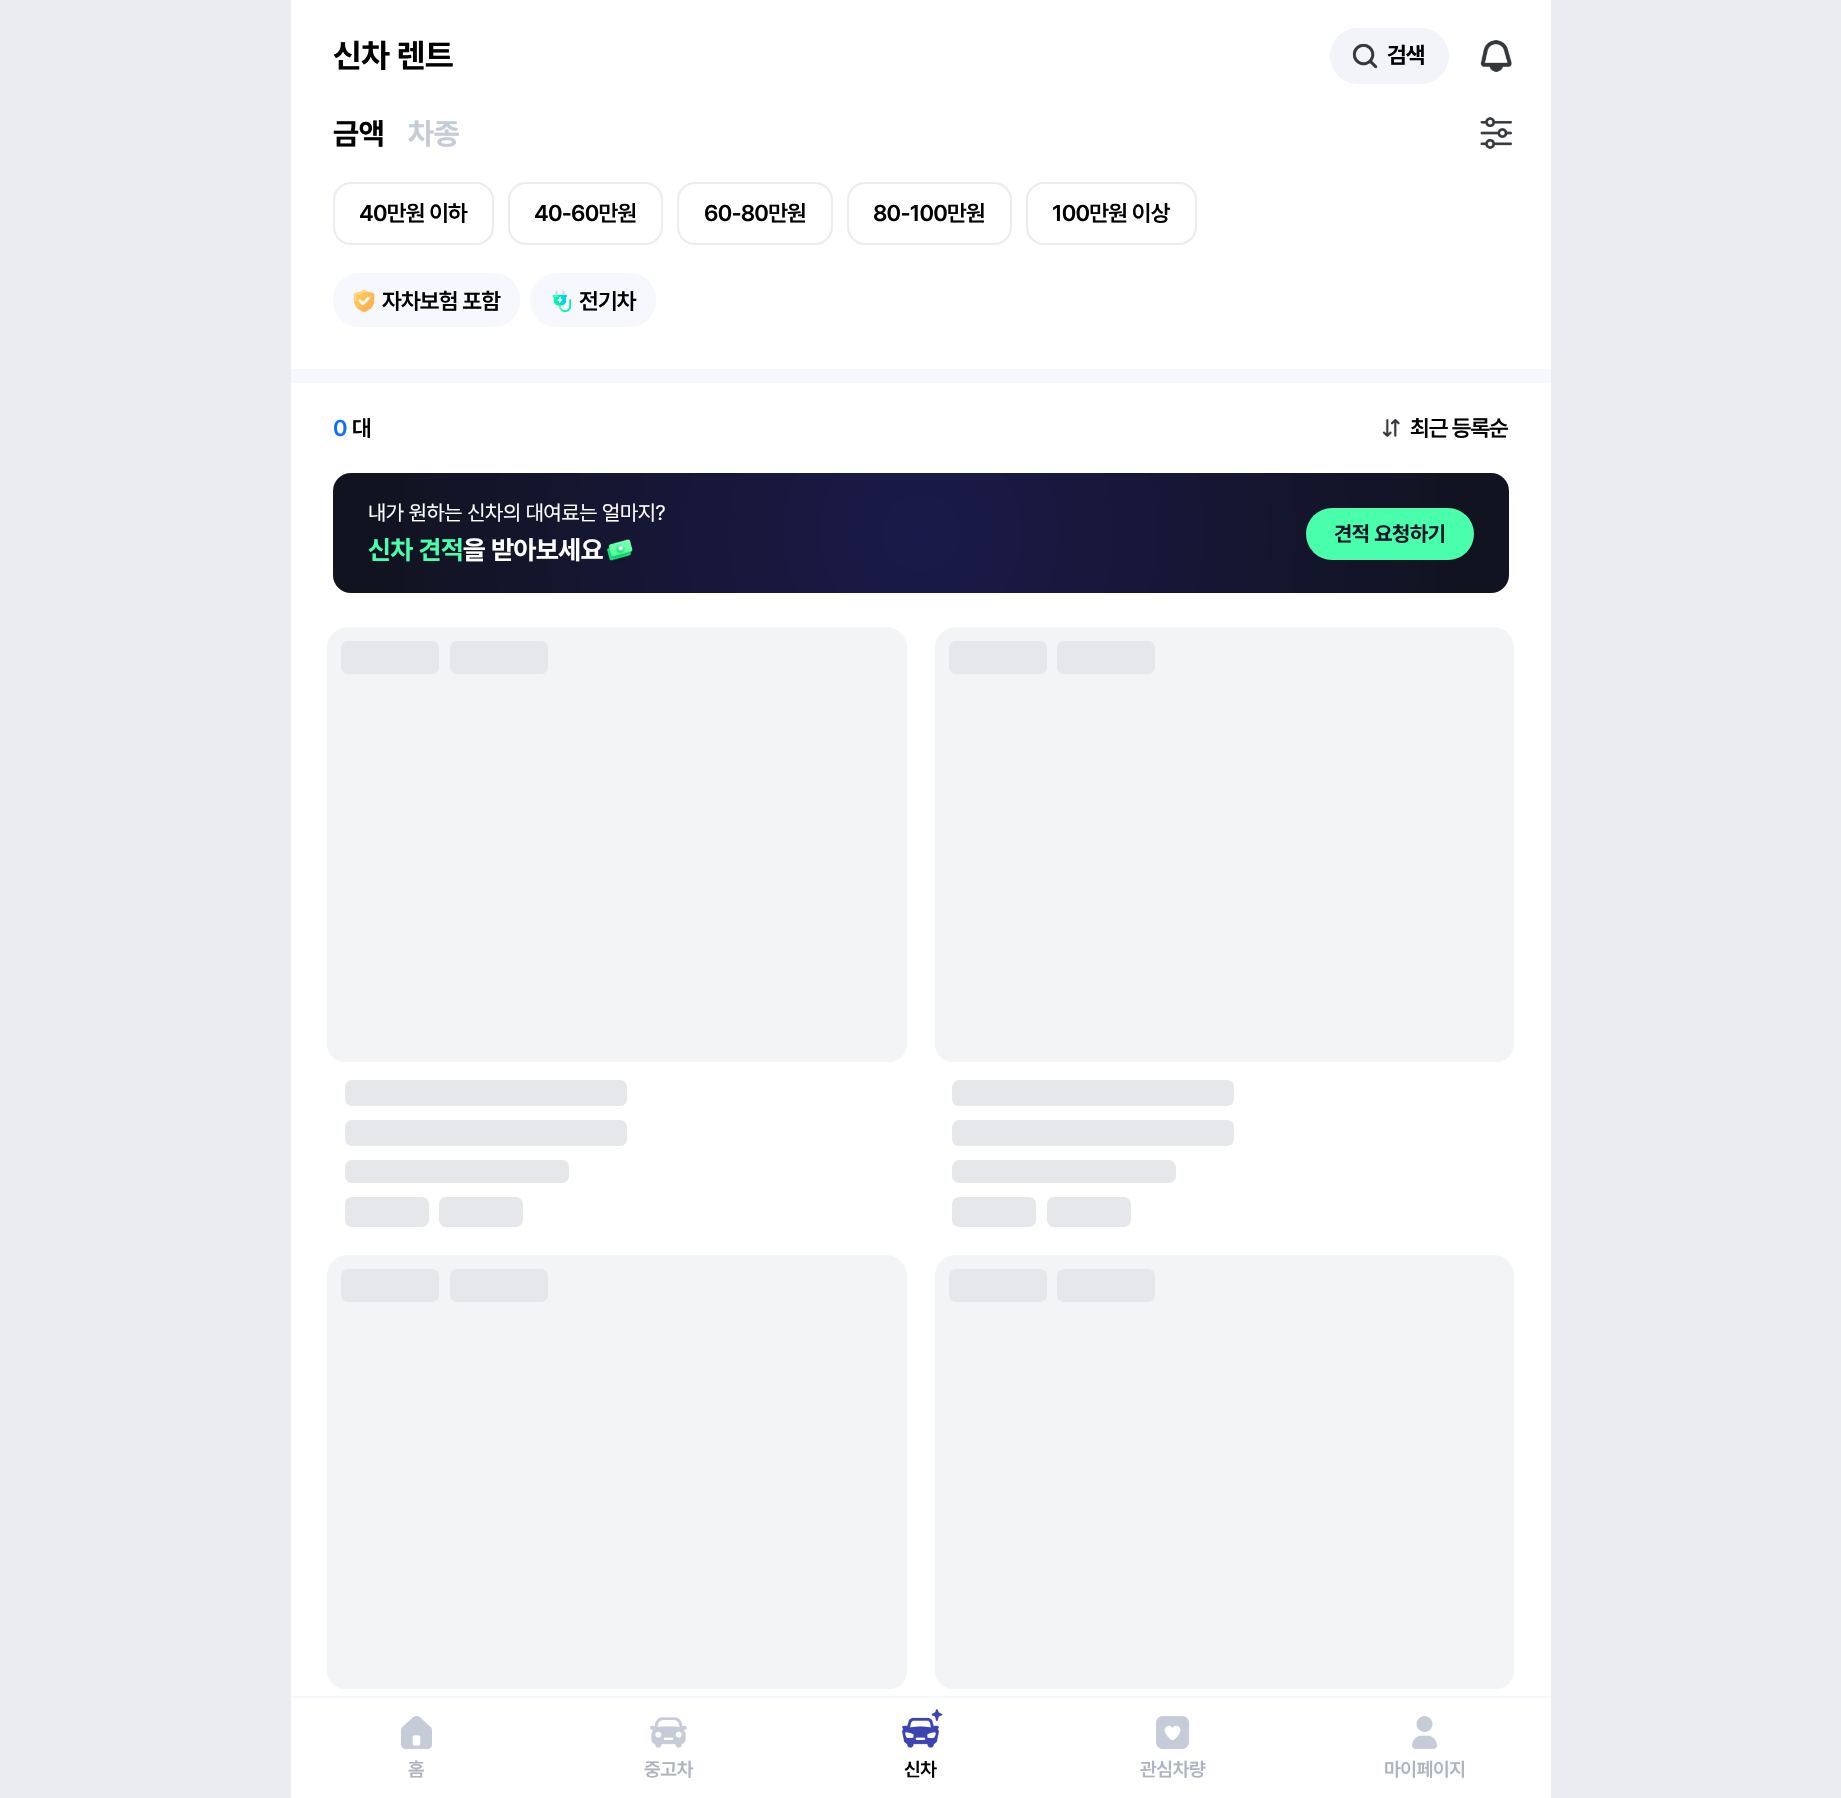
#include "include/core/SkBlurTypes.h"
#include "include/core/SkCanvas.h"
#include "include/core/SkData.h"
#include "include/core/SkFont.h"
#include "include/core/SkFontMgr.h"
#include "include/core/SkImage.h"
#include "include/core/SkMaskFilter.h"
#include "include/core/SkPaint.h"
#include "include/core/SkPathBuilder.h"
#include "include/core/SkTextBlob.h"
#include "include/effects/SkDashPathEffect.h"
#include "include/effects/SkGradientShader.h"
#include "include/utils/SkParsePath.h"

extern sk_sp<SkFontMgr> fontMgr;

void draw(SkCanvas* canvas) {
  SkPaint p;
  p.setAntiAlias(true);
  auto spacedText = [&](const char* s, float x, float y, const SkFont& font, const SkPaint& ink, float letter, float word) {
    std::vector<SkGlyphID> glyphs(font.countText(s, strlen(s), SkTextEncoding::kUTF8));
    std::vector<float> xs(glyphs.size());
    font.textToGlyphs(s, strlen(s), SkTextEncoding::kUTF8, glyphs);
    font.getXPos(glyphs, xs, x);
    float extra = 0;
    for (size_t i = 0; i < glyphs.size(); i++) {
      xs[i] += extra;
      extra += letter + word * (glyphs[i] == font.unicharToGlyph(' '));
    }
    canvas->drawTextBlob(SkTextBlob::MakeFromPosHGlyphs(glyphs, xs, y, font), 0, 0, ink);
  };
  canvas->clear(SkColorSetRGB(235, 236, 242));
  p.setColor(SK_ColorWHITE);
  canvas->drawRect(SkRect::MakeLTRB(291, 0, 1551, 1696), p);
  p.setColor(SkColorSetRGB(243, 244, 249));
  canvas->drawRoundRect(SkRect::MakeLTRB(1330, 28, 1449, 84), 28, 28, p);
  canvas->drawImageRect(SkImages::DeferredFromEncodedData(SkData::MakeFromFileName("images/1.png")), SkRect::MakeLTRB(1352, 43, 1378, 69), SkSamplingOptions());
  canvas->drawImageRect(SkImages::DeferredFromEncodedData(SkData::MakeFromFileName("images/2.png")), SkRect::MakeLTRB(1480, 40, 1512, 72), SkSamplingOptions());
  canvas->drawImageRect(SkImages::DeferredFromEncodedData(SkData::MakeFromFileName("images/3.png")), SkRect::MakeLTRB(1480, 117, 1512, 149), SkSamplingOptions());
  p.setStyle(SkPaint::kStroke_Style);
  p.setStrokeWidth(2);
  p.setColor(SkColorSetRGB(235, 236, 242));
  canvas->drawRoundRect(SkRect::MakeLTRB(334, 183, 493, 244), 17, 17, p);
  canvas->drawRoundRect(SkRect::MakeLTRB(509, 183, 662, 244), 17, 17, p);
  canvas->drawRoundRect(SkRect::MakeLTRB(678, 183, 832, 244), 17, 17, p);
  canvas->drawRoundRect(SkRect::MakeLTRB(848, 183, 1011, 244), 17, 17, p);
  canvas->drawRoundRect(SkRect::MakeLTRB(1027, 183, 1196, 244), 17, 17, p);
  p.setStyle(SkPaint::kFill_Style);
  p.setColor(SkColorSetRGB(247, 248, 253));
  canvas->drawRoundRect(SkRect::MakeLTRB(333, 273, 520, 327), 26, 26, p);
  canvas->drawImageRect(SkImages::DeferredFromEncodedData(SkData::MakeFromFileName("images/4.png")), SkRect::MakeLTRB(353, 290, 375, 312), SkSamplingOptions());
  canvas->drawRoundRect(SkRect::MakeLTRB(530, 273, 656, 327), 26, 26, p);
  canvas->drawImageRect(SkImages::DeferredFromEncodedData(SkData::MakeFromFileName("images/5.png")), SkRect::MakeLTRB(552, 290, 572, 313), SkSamplingOptions());
  canvas->drawRect(SkRect::MakeLTRB(291, 369, 1551, 383), p);
  canvas->drawImageRect(SkImages::DeferredFromEncodedData(SkData::MakeFromFileName("images/6.png")), SkRect::MakeLTRB(1382, 419, 1400, 437), SkSamplingOptions());
  {
    const SkColor colors[] = {SkColorSetRGB(26, 26, 74), SkColorSetRGB(18, 19, 33)};
    const float stops[] = {0, 0.91f};
    p.setShader(SkGradientShader::MakeRadial({921, 533}, 591, colors, stops, 2, SkTileMode::kClamp));
    p.setAlpha(255);
  }
  canvas->drawRoundRect(SkRect::MakeLTRB(333, 473, 1509, 593), 18, 18, p);
  canvas->drawImageRect(SkImages::DeferredFromEncodedData(SkData::MakeFromFileName("images/7.png")), SkRect::MakeLTRB(607, 539, 633, 562), SkSamplingOptions());
  p.setShader(nullptr);
  p.setColor(SkColorSetRGB(74, 255, 171));
  canvas->drawRoundRect(SkRect::MakeLTRB(1306, 508, 1474, 560), 26, 26, p);
  p.setColor(SkColorSetRGB(243, 244, 246));
  canvas->drawPath(SkPathBuilder().moveTo(348, 627).lineTo(886, 627).cubicTo(897.5f, 627, 907, 636.5f, 907, 648).lineTo(907, 1044).cubicTo(907, 1054, 899, 1062, 889, 1062).lineTo(345, 1062).cubicTo(335, 1062, 327, 1054, 327, 1044).lineTo(327, 648).cubicTo(327, 636.5f, 336.5f, 627, 348, 627).close().detach(), p);
  p.setColor(SkColorSetRGB(229, 231, 235));
  canvas->drawRoundRect(SkRect::MakeLTRB(341, 641, 439, 674), 7, 7, p);
  canvas->drawRoundRect(SkRect::MakeLTRB(450, 641, 548, 674), 7, 7, p);
  canvas->drawRoundRect(SkRect::MakeLTRB(345, 1080, 627, 1106), 7, 7, p);
  canvas->drawRoundRect(SkRect::MakeLTRB(345, 1120, 627, 1146), 7, 7, p);
  canvas->drawRoundRect(SkRect::MakeLTRB(345, 1160, 569, 1183), 7, 7, p);
  canvas->drawRoundRect(SkRect::MakeLTRB(345, 1197, 429, 1227), 7, 7, p);
  canvas->drawRoundRect(SkRect::MakeLTRB(439, 1197, 523, 1227), 7, 7, p);
  p.setColor(SkColorSetRGB(243, 244, 246));
  canvas->drawPath(SkPathBuilder().moveTo(956, 627).lineTo(1493, 627).cubicTo(1504.5f, 627, 1514, 636.5f, 1514, 648).lineTo(1514, 1044).cubicTo(1514, 1054, 1506, 1062, 1496, 1062).lineTo(953, 1062).cubicTo(943, 1062, 935, 1054, 935, 1044).lineTo(935, 648).cubicTo(935, 636.5f, 944.5f, 627, 956, 627).close().detach(), p);
  p.setColor(SkColorSetRGB(229, 231, 235));
  canvas->drawRoundRect(SkRect::MakeLTRB(949, 641, 1047, 674), 7, 7, p);
  canvas->drawRoundRect(SkRect::MakeLTRB(1057, 641, 1155, 674), 7, 7, p);
  canvas->drawRoundRect(SkRect::MakeLTRB(952, 1080, 1234, 1106), 7, 7, p);
  canvas->drawRoundRect(SkRect::MakeLTRB(952, 1120, 1234, 1146), 7, 7, p);
  canvas->drawRoundRect(SkRect::MakeLTRB(952, 1160, 1176, 1183), 7, 7, p);
  canvas->drawRoundRect(SkRect::MakeLTRB(952, 1197, 1036, 1227), 7, 7, p);
  canvas->drawRoundRect(SkRect::MakeLTRB(1047, 1197, 1131, 1227), 7, 7, p);
  p.setColor(SkColorSetRGB(243, 244, 246));
  canvas->drawPath(SkPathBuilder().moveTo(348, 1255).lineTo(886, 1255).cubicTo(897.5f, 1255, 907, 1264.5f, 907, 1276).lineTo(907, 1671).cubicTo(907, 1681, 899, 1689, 889, 1689).lineTo(345, 1689).cubicTo(335, 1689, 327, 1681, 327, 1671).lineTo(327, 1276).cubicTo(327, 1264.5f, 336.5f, 1255, 348, 1255).close().detach(), p);
  p.setColor(SkColorSetRGB(229, 231, 235));
  canvas->drawRoundRect(SkRect::MakeLTRB(341, 1269, 439, 1302), 7, 7, p);
  canvas->drawRoundRect(SkRect::MakeLTRB(450, 1269, 548, 1302), 7, 7, p);
  p.setColor(SkColorSetRGB(243, 244, 246));
  canvas->drawPath(SkPathBuilder().moveTo(956, 1255).lineTo(1493, 1255).cubicTo(1504.5f, 1255, 1514, 1264.5f, 1514, 1276).lineTo(1514, 1671).cubicTo(1514, 1681, 1506, 1689, 1496, 1689).lineTo(953, 1689).cubicTo(943, 1689, 935, 1681, 935, 1671).lineTo(935, 1276).cubicTo(935, 1264.5f, 944.5f, 1255, 956, 1255).close().detach(), p);
  p.setColor(SkColorSetRGB(229, 231, 235));
  canvas->drawRoundRect(SkRect::MakeLTRB(949, 1269, 1047, 1302), 7, 7, p);
  canvas->drawRoundRect(SkRect::MakeLTRB(1057, 1269, 1155, 1302), 7, 7, p);
  p.setColor(SK_ColorWHITE);
  canvas->drawRect(SkRect::MakeLTRB(291, 1698, 1551, 1798), p);
  p.setColor(SkColorSetRGB(247, 248, 253));
  canvas->drawRect(SkRect::MakeLTRB(291, 1696, 1551, 1698), p);
  canvas->drawImageRect(SkImages::DeferredFromEncodedData(SkData::MakeFromFileName("images/8.png")), SkRect::MakeLTRB(401, 1716, 432, 1750), SkSamplingOptions());
  canvas->drawImageRect(SkImages::DeferredFromEncodedData(SkData::MakeFromFileName("images/9.png")), SkRect::MakeLTRB(650, 1717, 687, 1748), SkSamplingOptions());
  canvas->drawImageRect(SkImages::DeferredFromEncodedData(SkData::MakeFromFileName("images/10.png")), SkRect::MakeLTRB(902, 1709, 943, 1748), SkSamplingOptions());
  canvas->drawImageRect(SkImages::DeferredFromEncodedData(SkData::MakeFromFileName("images/11.png")), SkRect::MakeLTRB(1156, 1716, 1190, 1750), SkSamplingOptions());
  canvas->drawImageRect(SkImages::DeferredFromEncodedData(SkData::MakeFromFileName("images/12.png")), SkRect::MakeLTRB(1412, 1716, 1437, 1749), SkSamplingOptions());
  SkFont font1(fontMgr->matchFamilyStyle("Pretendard", SkFontStyle::Bold()), 33);
  font1.setSubpixel(true);
  p.setColor(SK_ColorBLACK);
  spacedText("신차 렌트", 333, 67, font1, p, -0.3f, 0);
  SkFont font2(fontMgr->matchFamilyStyle("Pretendard", SkFontStyle::Bold()), 22.75f);
  font2.setSubpixel(true);
  spacedText("검색", 1387, 63, font2, p, -1, 0);
  SkFont font3(fontMgr->matchFamilyStyle("Pretendard", SkFontStyle::Bold()), 30);
  font3.setSubpixel(true);
  spacedText("금액", 333, 144, font3, p, -0.3f, 0);
  p.setColor(SkColorSetRGB(197, 204, 216));
  spacedText("차종", 408, 144, font3, p, -0.3f, 0);
  SkFont font4(fontMgr->matchFamilyStyle("Pretendard", SkFontStyle(600, SkFontStyle::kNormal_Width, SkFontStyle::kUpright_Slant)), 22.75f);
  font4.setSubpixel(true);
  p.setColor(SK_ColorBLACK);
  spacedText("40만원 이하", 359, 221, font4, p, -0.75f, 0);
  spacedText("40-60만원", 534, 221, font4, p, -0.75f, 0);
  spacedText("60-80만원", 704, 221, font4, p, -0.75f, 0);
  spacedText("80-100만원", 873, 221, font4, p, -0.75f, 0);
  spacedText("100만원 이상", 1052, 221, font4, p, -0.75f, 0);
  spacedText("자차보험 포함", 382, 309, font4, p, -0.75f, 0);
  spacedText("전기차", 579, 309, font4, p, -0.75f, 0);
  p.setColor(SkColorSetRGB(15, 110, 252));
  spacedText("0", 333, 436, font4, p, -0.3f, 0);
  p.setColor(SK_ColorBLACK);
  spacedText("대", 352, 436, font4, p, -0.3f, 0);
  spacedText("최근 등록순", 1410, 436, font4, p, -1, 0);
  SkFont font5(fontMgr->matchFamilyStyle("Pretendard", SkFontStyle::Normal()), 21);
  font5.setSubpixel(true);
  p.setColor(SK_ColorWHITE);
  spacedText("내가 원하는 신차의 대여료는 얼마지?", 368, 520, font5, p, -0.3f, 0);
  SkFont font6(fontMgr->matchFamilyStyle("Pretendard", SkFontStyle::Bold()), 26.25f);
  font6.setSubpixel(true);
  p.setColor(SkColorSetRGB(74, 255, 171));
  spacedText("신차 견적", 368, 559, font6, p, -0.3f, 0);
  p.setColor(SK_ColorWHITE);
  spacedText("을 받아보세요", 463, 559, font6, p, -0.3f, 0);
  SkFont font7(fontMgr->matchFamilyStyle("Pretendard", SkFontStyle::Bold()), 21);
  font7.setSubpixel(true);
  p.setColor(SkColorSetRGB(20, 21, 42));
  spacedText("견적 요청하기", 1334, 541, font7, p, -0.3f, 0);
  SkFont font8(fontMgr->matchFamilyStyle("Pretendard", SkFontStyle(600, SkFontStyle::kNormal_Width, SkFontStyle::kUpright_Slant)), 19.25f);
  font8.setSubpixel(true);
  p.setColor(SkColorSetRGB(173, 179, 191));
  spacedText("홈", 408, 1776, font8, p, -0.3f, 0);
  spacedText("중고차", 644, 1776, font8, p, -0.3f, 0);
  p.setColor(SK_ColorBLACK);
  spacedText("신차", 904, 1776, font8, p, -0.3f, 0);
  p.setColor(SkColorSetRGB(173, 179, 191));
  spacedText("관심차량", 1140, 1776, font8, p, -0.3f, 0);
  spacedText("마이페이지", 1384, 1776, font8, p, -0.3f, 0);
}
